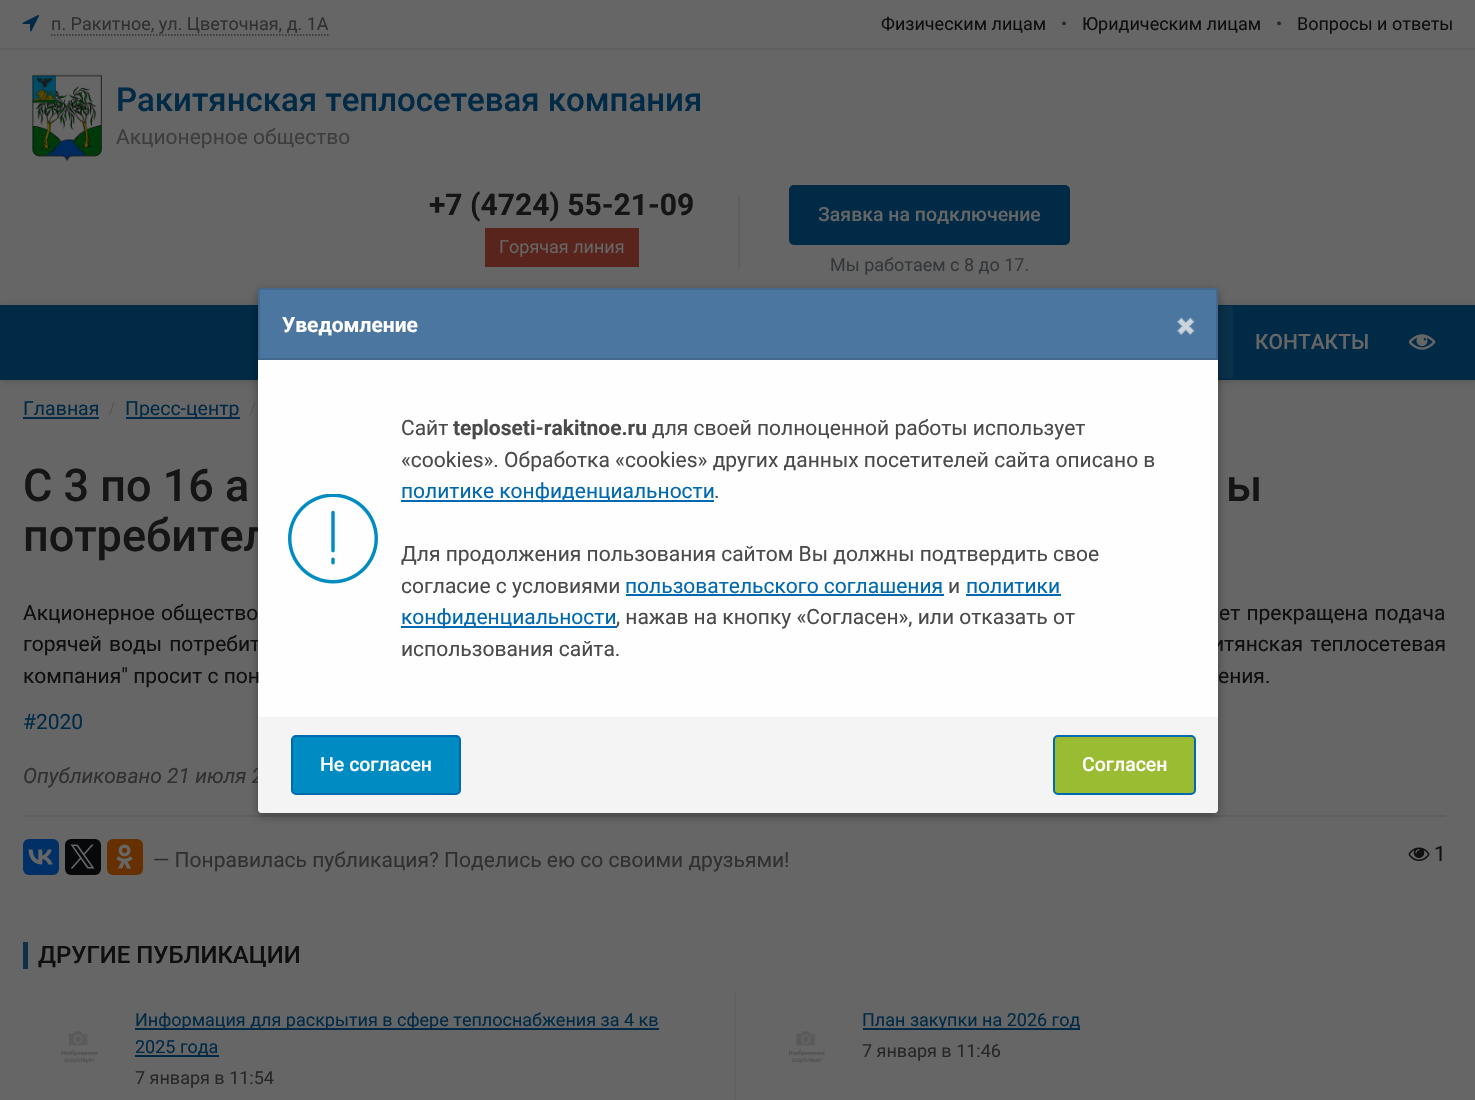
#include "include/core/SkBlurTypes.h"
#include "include/core/SkCanvas.h"
#include "include/core/SkData.h"
#include "include/core/SkFont.h"
#include "include/core/SkFontMgr.h"
#include "include/core/SkImage.h"
#include "include/core/SkMaskFilter.h"
#include "include/core/SkPaint.h"
#include "include/core/SkPathBuilder.h"
#include "include/core/SkTextBlob.h"
#include "include/effects/SkDashPathEffect.h"
#include "include/effects/SkGradientShader.h"
#include "include/utils/SkParsePath.h"

extern sk_sp<SkFontMgr> fontMgr;

void draw(SkCanvas* canvas) {
  SkPaint p;
  p.setAntiAlias(true);
  auto spacedText = [&](const char* s, float x, float y, const SkFont& font, const SkPaint& ink, float letter, float word) {
    std::vector<SkGlyphID> glyphs(font.countText(s, strlen(s), SkTextEncoding::kUTF8));
    std::vector<float> xs(glyphs.size());
    font.textToGlyphs(s, strlen(s), SkTextEncoding::kUTF8, glyphs);
    font.getXPos(glyphs, xs, x);
    float extra = 0;
    for (size_t i = 0; i < glyphs.size(); i++) {
      xs[i] += extra;
      extra += letter + word * (glyphs[i] == font.unicharToGlyph(' '));
    }
    canvas->drawTextBlob(SkTextBlob::MakeFromPosHGlyphs(glyphs, xs, y, font), 0, 0, ink);
  };
  canvas->clear(SkColorSetRGB(102, 102, 102));
  p.setColor(SkColorSetRGB(95, 95, 95));
  canvas->drawRect(SkRect::MakeLTRB(0, 48, 1475, 50), p);
  canvas->drawImageRect(SkImages::DeferredFromEncodedData(SkData::MakeFromFileName("images/1.png")), SkRect::MakeLTRB(22, 15, 39, 32), SkSamplingOptions());
  p.setStyle(SkPaint::kStroke_Style);
  p.setStrokeWidth(1.5f);
  p.setColor(SkColorSetRGB(52, 52, 52));
  p.setPathEffect(SkDashPathEffect::Make({{1.5f, 1.5f}}, 0));
  canvas->drawPath(SkPathBuilder().moveTo(51, 35).lineTo(328.5f, 35).detach(), p);
  p.setPathEffect(nullptr);
  canvas->drawImageRect(SkImages::DeferredFromEncodedData(SkData::MakeFromFileName("images/2.png")), SkRect::MakeLTRB(32, 74, 102, 161), SkSamplingOptions());
  p.setStyle(SkPaint::kFill_Style);
  p.setColor(SkColorSetRGB(88, 36, 27));
  canvas->drawRect(SkRect::MakeLTRB(485, 228, 639, 267), p);
  p.setColor(SkColorSetRGB(94, 95, 96));
  canvas->drawRect(SkRect::MakeLTRB(738, 195, 740, 270), p);
  p.setColor(SkColorSetRGB(0, 42, 70));
  canvas->drawRoundRect(SkRect::MakeLTRB(790, 186, 1069, 244), 4, 4, p);
  p.setStyle(SkPaint::kStroke_Style);
  p.setStrokeWidth(2);
  canvas->drawRoundRect(SkRect::MakeLTRB(790, 186, 1069, 244), 4, 4, p);
  p.setStyle(SkPaint::kFill_Style);
  p.setColor(SkColorSetARGB(38, 0, 0, 0));
  p.setMaskFilter(SkMaskFilter::MakeBlur(kNormal_SkBlurStyle, 4));
  canvas->drawRect(SkRect::MakeLTRB(0, 306, 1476, 381), p);
  p.setMaskFilter(nullptr);
  p.setColor(SkColorSetRGB(0, 42, 70));
  canvas->drawRect(SkRect::MakeLTRB(0, 305, 1475, 380), p);
  p.setColor(SkColorSetRGB(10, 48, 74));
  canvas->drawRect(SkRect::MakeLTRB(1218, 306, 1233, 378), p);
  canvas->drawImageRect(SkImages::DeferredFromEncodedData(SkData::MakeFromFileName("images/3.png")), SkRect::MakeLTRB(1409, 334, 1436, 350), SkSamplingOptions());
  p.setColor(SkColorSetRGB(95, 95, 95));
  canvas->drawRect(SkRect::MakeLTRB(23, 815, 1446, 817), p);
  p.setColor(SkColorSetARGB(87, 0, 0, 0));
  p.setMaskFilter(SkMaskFilter::MakeBlur(kNormal_SkBlurStyle, 5));
  canvas->drawRoundRect(SkRect::MakeLTRB(258, 291, 1218, 816), 3, 3, p);
  p.setMaskFilter(nullptr);
  p.setColor(SkColorSetRGB(75, 118, 159));
  canvas->drawPath(SkPathBuilder().moveTo(261, 289).lineTo(1215, 289).cubicTo(1216, 289, 1217, 290, 1217, 291).lineTo(1217, 359).lineTo(259, 359).lineTo(259, 291).cubicTo(259, 290, 260, 289, 261, 289).close().detach(), p);
  p.setStyle(SkPaint::kStroke_Style);
  p.setColor(SkColorSetRGB(69, 104, 142));
  canvas->drawPath(SkPathBuilder().moveTo(261, 289).lineTo(1215, 289).cubicTo(1216, 289, 1217, 290, 1217, 291).lineTo(1217, 359).lineTo(259, 359).lineTo(259, 291).cubicTo(259, 290, 260, 289, 261, 289).close().detach(), p);
  canvas->drawImageRect(SkImages::DeferredFromEncodedData(SkData::MakeFromFileName("images/4.png")), SkRect::MakeLTRB(1177, 317, 1195, 335), SkSamplingOptions());
  p.setStyle(SkPaint::kFill_Style);
  p.setColor(SkColorSetRGB(0, 42, 70));
  canvas->drawRect(SkRect::MakeLTRB(23, 417, 99, 419), p);
  canvas->drawRect(SkRect::MakeLTRB(126, 417, 240, 419), p);
  p.setColor(SkColorSetRGB(0, 48, 102));
  canvas->drawRoundRect(SkRect::MakeLTRB(23, 839, 59, 875), 6, 6, p);
  canvas->drawImageRect(SkImages::DeferredFromEncodedData(SkData::MakeFromFileName("images/6.png")), SkRect::MakeLTRB(28, 849, 53, 865), SkSamplingOptions());
  p.setColor(SkColorSetRGB(6, 8, 10));
  canvas->drawRoundRect(SkRect::MakeLTRB(65, 839, 101, 875), 6, 6, p);
  canvas->drawImageRect(SkImages::DeferredFromEncodedData(SkData::MakeFromFileName("images/7.png")), SkRect::MakeLTRB(70, 844, 95, 869), SkSamplingOptions());
  p.setColor(SkColorSetRGB(102, 48, 0));
  canvas->drawRoundRect(SkRect::MakeLTRB(107, 839, 143, 875), 6, 6, p);
  canvas->drawImageRect(SkImages::DeferredFromEncodedData(SkData::MakeFromFileName("images/8.png")), SkRect::MakeLTRB(116, 844, 133, 869), SkSamplingOptions());
  canvas->drawImageRect(SkImages::DeferredFromEncodedData(SkData::MakeFromFileName("images/9.png")), SkRect::MakeLTRB(1408, 847, 1430, 861), SkSamplingOptions());
  p.setColor(SkColorSetRGB(15, 48, 75));
  canvas->drawRect(SkRect::MakeLTRB(23, 942, 28, 969), p);
  p.setColor(SkColorSetRGB(97, 97, 97));
  canvas->drawRect(SkRect::MakeLTRB(734, 992, 736, 1100), p);
  canvas->drawImageRect(SkImages::DeferredFromEncodedData(SkData::MakeFromFileName("images/10.png")), SkRect::MakeLTRB(61, 1031, 98, 1064), SkSamplingOptions());
  p.setColor(SkColorSetRGB(0, 42, 70));
  canvas->drawRect(SkRect::MakeLTRB(135, 1028, 659, 1030), p);
  canvas->drawRect(SkRect::MakeLTRB(135, 1055, 219, 1057), p);
  canvas->drawImageRect(SkImages::DeferredFromEncodedData(SkData::MakeFromFileName("images/11.png")), SkRect::MakeLTRB(789, 1031, 825, 1064), SkSamplingOptions());
  canvas->drawRect(SkRect::MakeLTRB(863, 1028, 1080, 1030), p);
  SkFont font1(fontMgr->matchFamilyStyle("Roboto", SkFontStyle::Normal()), 18);
  font1.setSubpixel(true);
  p.setColor(SkColorSetRGB(48, 48, 48));
  canvas->drawString("п. Ракитное, ул. Цветочная, д. 1А", 51, 30, font1, p);
  p.setColor(SkColorSetRGB(15, 15, 15));
  canvas->drawString("Физическим лицам", 881, 30, font1, p);
  p.setColor(SkColorSetRGB(39, 39, 39));
  canvas->drawString("•", 1061, 30, font1, p);
  p.setColor(SkColorSetRGB(15, 15, 15));
  canvas->drawString("Юридическим лицам", 1082, 30, font1, p);
  p.setColor(SkColorSetRGB(39, 39, 39));
  canvas->drawString("•", 1276, 30, font1, p);
  p.setColor(SkColorSetRGB(15, 15, 15));
  canvas->drawString("Вопросы и ответы", 1297, 30, font1, p);
  SkFont font2(fontMgr->matchFamilyStyle("Roboto", SkFontStyle(500, SkFontStyle::kNormal_Width, SkFontStyle::kUpright_Slant)), 33);
  font2.setSubpixel(true);
  p.setColor(SkColorSetRGB(0, 42, 70));
  canvas->drawString("Ракитянская теплосетевая компания", 116, 111, font2, p);
  SkFont font3(fontMgr->matchFamilyStyle("Roboto", SkFontStyle::Normal()), 21);
  font3.setSubpixel(true);
  p.setColor(SkColorSetRGB(61, 61, 61));
  canvas->drawString("Акционерное общество", 116, 144, font3, p);
  SkFont font4(fontMgr->matchFamilyStyle("Roboto", SkFontStyle::Bold()), 30);
  font4.setSubpixel(true);
  p.setColor(SkColorSetRGB(21, 21, 21));
  canvas->drawString("+7 (4724) 55-21-09", 429, 215, font4, p);
  p.setColor(SkColorSetRGB(102, 102, 102));
  canvas->drawString("Горячая линия", 499, 253, font1, p);
  SkFont font5(fontMgr->matchFamilyStyle("Roboto", SkFontStyle(500, SkFontStyle::kNormal_Width, SkFontStyle::kUpright_Slant)), 19.5f);
  font5.setSubpixel(true);
  canvas->drawString("Заявка на подключение", 818, 221, font5, p);
  p.setColor(SkColorSetRGB(52, 55, 58));
  canvas->drawString("Мы работаем с 8 до 17.", 830, 271, font1, p);
  SkFont font6(fontMgr->matchFamilyStyle("Roboto", SkFontStyle(500, SkFontStyle::kNormal_Width, SkFontStyle::kUpright_Slant)), 21);
  font6.setSubpixel(true);
  p.setColor(SkColorSetRGB(102, 102, 102));
  canvas->drawString("КОНТАКТЫ", 1255, 349, font6, p);
  SkFont font7(fontMgr->matchFamilyStyle("Roboto", SkFontStyle::Bold()), 21);
  font7.setSubpixel(true);
  p.setColor(SK_ColorWHITE);
  canvas->drawString("Уведомление", 282, 332, font7, p);
  SkFont font8(fontMgr->matchFamilyStyle("Roboto", SkFontStyle::Normal()), 19.5f);
  font8.setSubpixel(true);
  p.setColor(SkColorSetRGB(0, 42, 70));
  canvas->drawString("Главная", 23, 415, font8, p);
  SkFont font9(fontMgr->matchFamilyStyle("Liberation Serif", SkFontStyle::Normal()), 19.5f);
  font9.setSubpixel(true);
  p.setColor(SkColorSetRGB(82, 82, 82));
  canvas->drawString("/", 109, 415, font9, p);
  p.setColor(SkColorSetRGB(0, 42, 70));
  canvas->drawString("Пресс-центр", 125, 415, font8, p);
  p.setColor(SkColorSetRGB(82, 82, 82));
  canvas->drawString("/", 250, 415, font9, p);
  SkFont font10(fontMgr->matchFamilyStyle("Roboto", SkFontStyle(500, SkFontStyle::kNormal_Width, SkFontStyle::kUpright_Slant)), 45);
  font10.setSubpixel(true);
  p.setColor(SkColorSetRGB(21, 21, 21));
  canvas->drawString("С 3 по 16 а", 23, 501, font10, p);
  canvas->drawString("ы", 1226, 501, font10, p);
  canvas->drawString("потребител", 23, 551, font10, p);
  p.setColor(SkColorSetRGB(15, 15, 15));
  spacedText("Акционерное общество", 23, 620, font3, p, 0, 1);
  spacedText("ет прекращена подача", 1219, 620, font3, p, 0, 1);
  spacedText("горячей воды потребит", 23, 651, font3, p, 0, 2);
  spacedText("итянская теплосетевая", 1212, 651, font3, p, 0, 2);
  p.setColor(SkColorSetRGB(254, 254, 254));
  canvas->drawRect(SkRect::MakeLTRB(258, 360, 1218, 717), p);
  p.setColor(SkColorSetRGB(74, 74, 74));
  canvas->drawString("использования сайта.", 401, 656, font3, p);
  p.setColor(SkColorSetRGB(0, 105, 176));
  canvas->drawRect(SkRect::MakeLTRB(401, 626, 617, 628), p);
  p.setColor(SkColorSetRGB(74, 74, 74));
  canvas->drawString(", нажав на кнопку «Согласен», или отказать от", 616, 624, font3, p);
  p.setColor(SkColorSetRGB(0, 105, 176));
  canvas->drawString("конфиденциальности", 401, 624, font3, p);
  canvas->drawString("политики", 966, 593, font3, p);
  canvas->drawRect(SkRect::MakeLTRB(966, 594, 1061, 596), p);
  p.setColor(SkColorSetRGB(74, 74, 74));
  canvas->drawString("и", 948, 593, font3, p);
  p.setColor(SkColorSetRGB(0, 105, 176));
  canvas->drawString("пользовательского соглашения", 625, 593, font3, p);
  canvas->drawRect(SkRect::MakeLTRB(626, 594, 944, 596), p);
  p.setColor(SkColorSetRGB(74, 74, 74));
  canvas->drawString("согласие с условиями", 401, 593, font3, p);
  canvas->drawString("Для продолжения пользования сайтом Вы должны подтвердить свое", 401, 561, font3, p);
  canvas->drawString(".", 714, 498, font3, p);
  p.setColor(SkColorSetRGB(0, 105, 176));
  canvas->drawRect(SkRect::MakeLTRB(401, 500, 714, 502), p);
  canvas->drawString("политике конфиденциальности", 401, 498, font3, p);
  p.setColor(SkColorSetRGB(74, 74, 74));
  canvas->drawString("«cookies». Обработка «cookies» других данных посетителей сайта описано в", 401, 467, font3, p);
  canvas->drawString("для своей полноценной работы использует", 652, 435, font3, p);
  canvas->drawString("teploseti-rakitnoe.ru", 453, 435, font7, p);
  canvas->drawString("Сайт", 401, 435, font3, p);
  canvas->drawImageRect(SkImages::DeferredFromEncodedData(SkData::MakeFromFileName("images/5.png")), SkRect::MakeLTRB(288, 494, 378, 584), SkSamplingOptions());
  p.setColor(SkColorSetRGB(15, 15, 15));
  canvas->drawString("компания\" просит с пон", 23, 683, font3, p);
  canvas->drawString("ения.", 1218, 683, font3, p);
  p.setColor(SkColorSetRGB(0, 42, 70));
  canvas->drawString("#2020", 23, 729, font3, p);
  SkFont font11(fontMgr->matchFamilyStyle("Roboto", SkFontStyle::Italic()), 21);
  font11.setSubpixel(true);
  p.setColor(SkColorSetRGB(48, 48, 48));
  canvas->drawString("Опубликовано 21 июля 2", 23, 783, font11, p);
  p.setColor(SkColorSetRGB(244, 244, 244));
  canvas->drawPath(SkPathBuilder().moveTo(258, 717).lineTo(1218, 717).lineTo(1218, 810).cubicTo(1218, 811.5f, 1216.5f, 813, 1215, 813).lineTo(261, 813).cubicTo(259.5f, 813, 258, 811.5f, 258, 810).close().detach(), p);
  p.setColor(SkColorSetRGB(0, 140, 195));
  canvas->drawRoundRect(SkRect::MakeLTRB(292, 736, 460, 794), 4, 4, p);
  p.setStyle(SkPaint::kStroke_Style);
  p.setColor(SkColorSetRGB(0, 105, 176));
  canvas->drawRoundRect(SkRect::MakeLTRB(292, 736, 460, 794), 4, 4, p);
  p.setStyle(SkPaint::kFill_Style);
  p.setColor(SK_ColorWHITE);
  canvas->drawString("Не согласен", 320, 771, font5, p);
  p.setColor(SkColorSetRGB(154, 188, 50));
  canvas->drawRoundRect(SkRect::MakeLTRB(1054, 736, 1195, 794), 4, 4, p);
  p.setStyle(SkPaint::kStroke_Style);
  p.setColor(SkColorSetRGB(0, 105, 176));
  canvas->drawRoundRect(SkRect::MakeLTRB(1054, 736, 1195, 794), 4, 4, p);
  p.setStyle(SkPaint::kFill_Style);
  p.setColor(SK_ColorWHITE);
  canvas->drawString("Согласен", 1082, 771, font5, p);
  p.setColor(SkColorSetRGB(48, 48, 48));
  canvas->drawString("— Понравилась публикация? Поделись ею со своими друзьями!", 153, 867, font3, p);
  p.setColor(SkColorSetRGB(15, 15, 15));
  canvas->drawString("1", 1434, 861, font3, p);
  SkFont font12(fontMgr->matchFamilyStyle("Roboto", SkFontStyle(500, SkFontStyle::kNormal_Width, SkFontStyle::kUpright_Slant)), 24);
  font12.setSubpixel(true);
  canvas->drawString("ДРУГИЕ ПУБЛИКАЦИИ", 38, 963, font12, p);
  p.setColor(SkColorSetRGB(0, 42, 70));
  canvas->drawString("Информация для раскрытия в сфере теплоснабжения за 4 кв", 135, 1026, font1, p);
  canvas->drawString("2025 года", 135, 1053, font1, p);
  p.setColor(SkColorSetRGB(39, 39, 39));
  canvas->drawString("7 января в 11:54", 135, 1084, font1, p);
  p.setColor(SkColorSetRGB(0, 42, 70));
  canvas->drawString("План закупки на 2026 год", 862, 1026, font1, p);
  p.setColor(SkColorSetRGB(39, 39, 39));
  canvas->drawString("7 января в 11:46", 862, 1057, font1, p);
}
